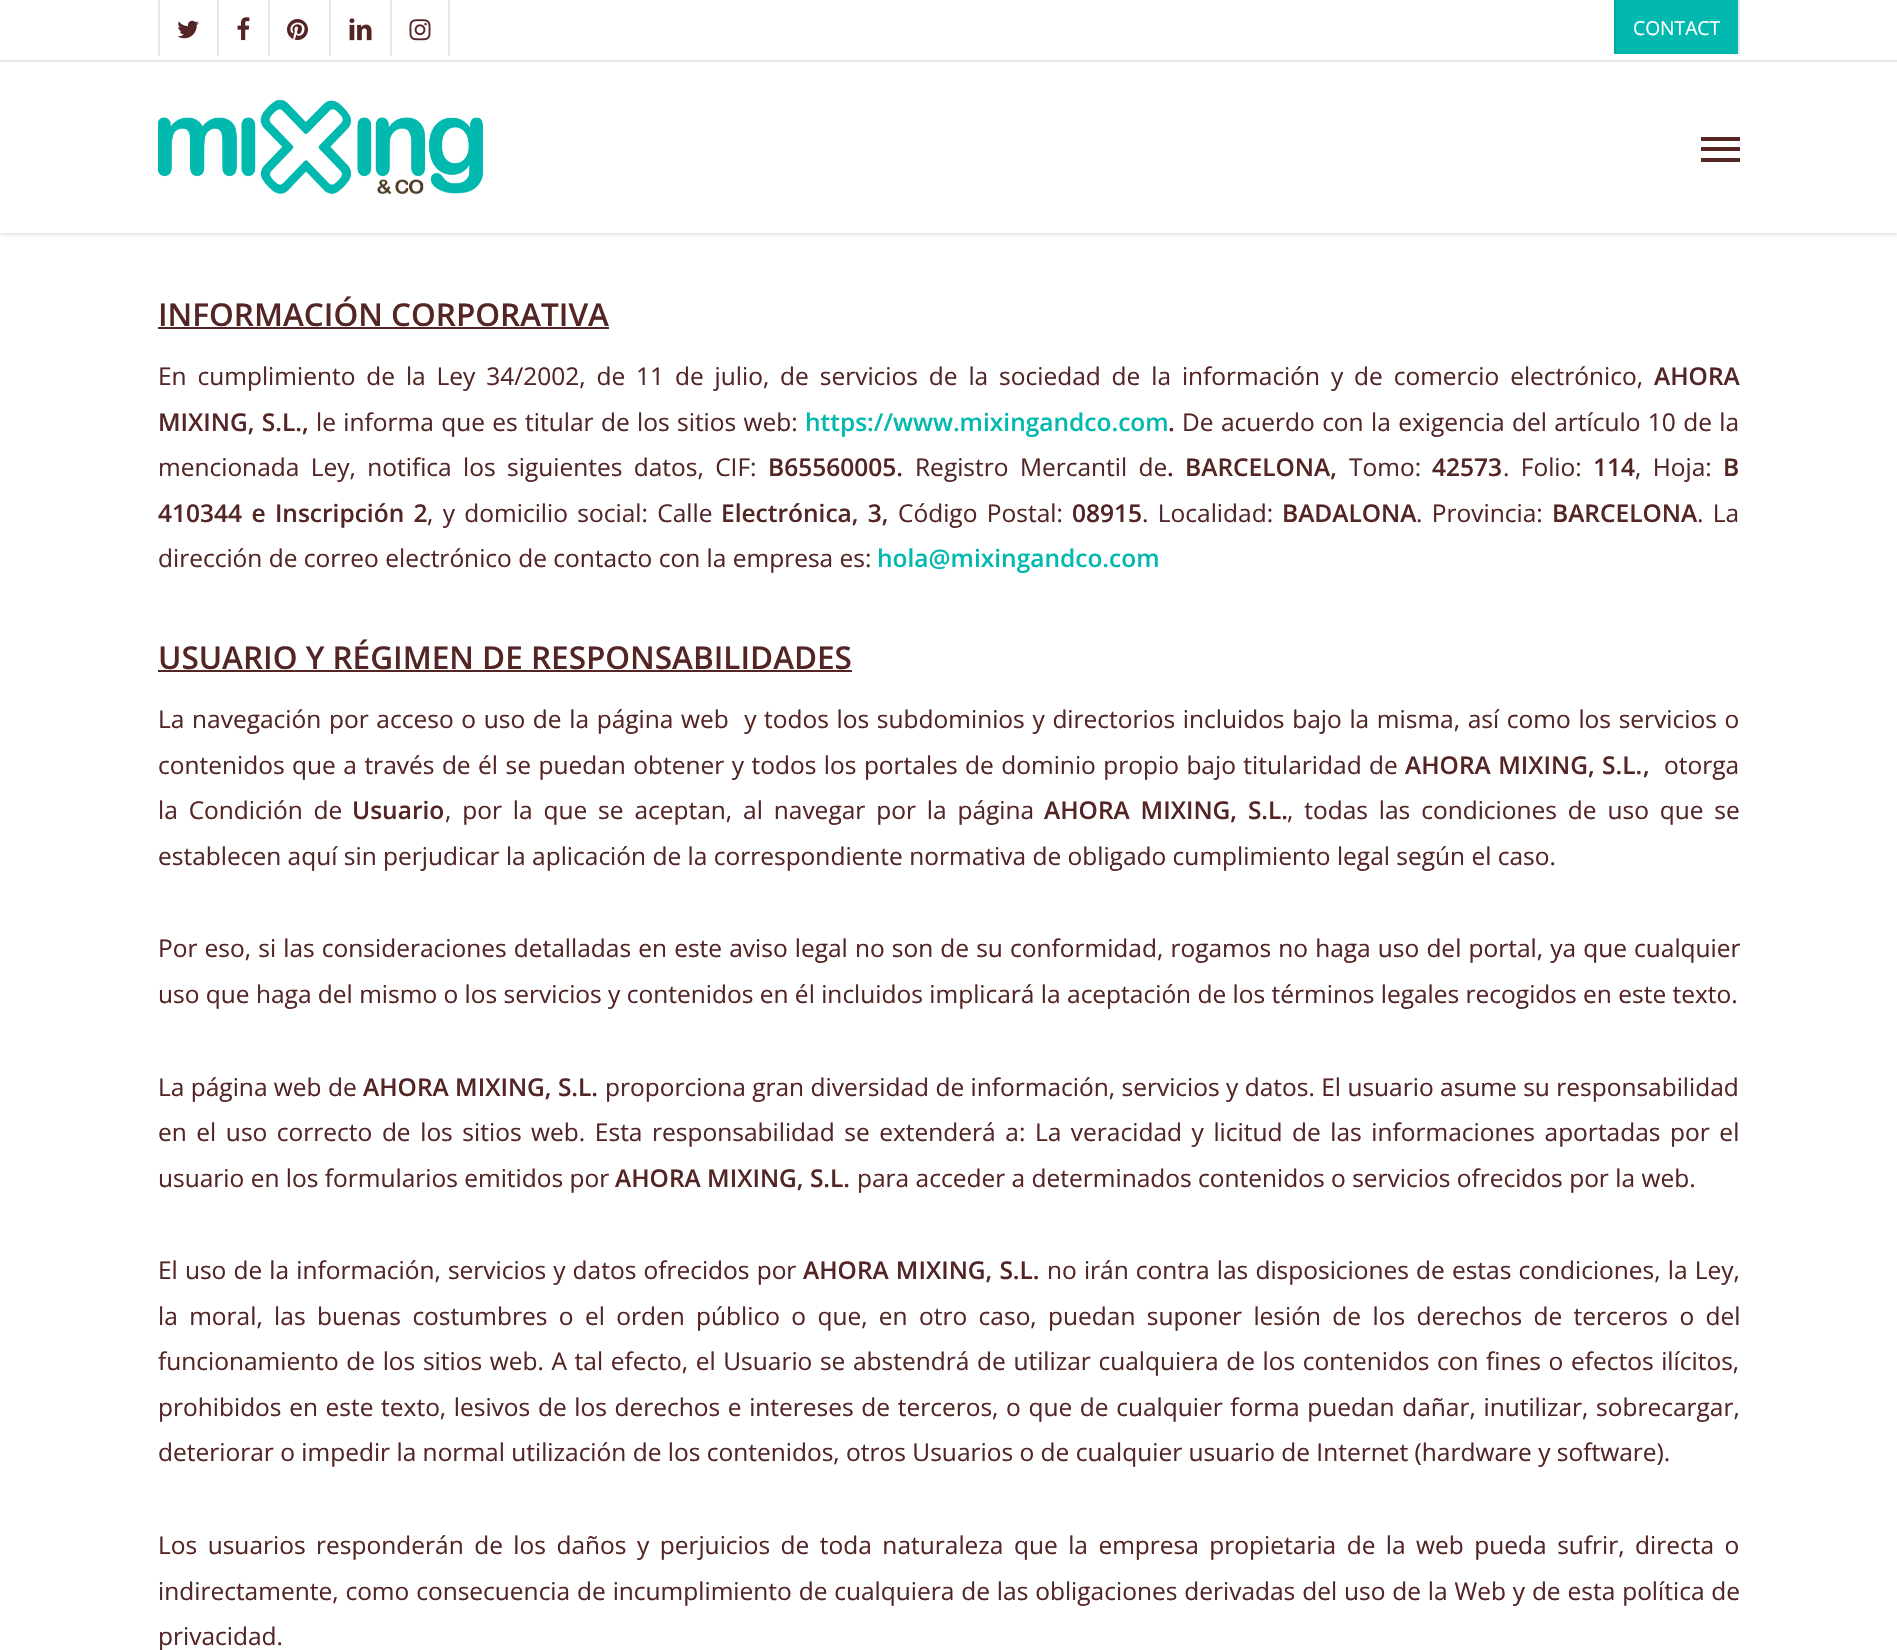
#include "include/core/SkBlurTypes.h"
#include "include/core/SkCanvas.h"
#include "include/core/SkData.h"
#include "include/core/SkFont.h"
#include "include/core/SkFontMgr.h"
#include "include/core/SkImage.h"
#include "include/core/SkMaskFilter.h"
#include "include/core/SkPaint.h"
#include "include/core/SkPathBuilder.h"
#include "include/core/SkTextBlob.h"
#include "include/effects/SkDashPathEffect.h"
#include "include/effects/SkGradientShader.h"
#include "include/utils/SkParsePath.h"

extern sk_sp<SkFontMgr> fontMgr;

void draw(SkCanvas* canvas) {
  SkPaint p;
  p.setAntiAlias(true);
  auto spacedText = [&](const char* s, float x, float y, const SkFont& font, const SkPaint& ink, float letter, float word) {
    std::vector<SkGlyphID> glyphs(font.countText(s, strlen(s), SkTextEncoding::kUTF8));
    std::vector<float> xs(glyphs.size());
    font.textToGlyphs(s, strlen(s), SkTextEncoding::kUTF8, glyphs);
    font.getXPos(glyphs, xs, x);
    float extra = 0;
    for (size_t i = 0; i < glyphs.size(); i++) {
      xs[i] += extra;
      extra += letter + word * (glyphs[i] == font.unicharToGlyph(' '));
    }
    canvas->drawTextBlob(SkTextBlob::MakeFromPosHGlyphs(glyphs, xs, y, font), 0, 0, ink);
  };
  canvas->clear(SK_ColorWHITE);
  p.setColor(SkColorSetARGB(56, 0, 0, 0));
  p.setMaskFilter(SkMaskFilter::MakeBlur(kNormal_SkBlurStyle, 2.5f));
  canvas->drawRect(SkRect::MakeLTRB(0, 0, 1897, 233), p);
  p.setMaskFilter(nullptr);
  p.setColor(SK_ColorWHITE);
  canvas->drawRect(SkRect::MakeLTRB(0, 0, 1897, 233), p);
  p.setColor(SkColorSetRGB(230, 230, 230));
  canvas->drawRect(SkRect::MakeLTRB(0, 60, 1897, 62), p);
  canvas->drawRect(SkRect::MakeLTRB(158, 0, 160, 56), p);
  canvas->drawImageRect(SkImages::DeferredFromEncodedData(SkData::MakeFromFileName("images/1.png")), SkRect::MakeLTRB(177, 20, 199, 39), SkSamplingOptions());
  canvas->drawRect(SkRect::MakeLTRB(217, 0, 219, 56), p);
  canvas->drawImageRect(SkImages::DeferredFromEncodedData(SkData::MakeFromFileName("images/2.png")), SkRect::MakeLTRB(237, 17, 250, 41), SkSamplingOptions());
  canvas->drawRect(SkRect::MakeLTRB(268, 0, 270, 56), p);
  canvas->drawImageRect(SkImages::DeferredFromEncodedData(SkData::MakeFromFileName("images/3.png")), SkRect::MakeLTRB(287, 19, 308, 40), SkSamplingOptions());
  canvas->drawRect(SkRect::MakeLTRB(329, 0, 331, 56), p);
  canvas->drawImageRect(SkImages::DeferredFromEncodedData(SkData::MakeFromFileName("images/4.png")), SkRect::MakeLTRB(349, 18, 372, 41), SkSamplingOptions());
  canvas->drawRect(SkRect::MakeLTRB(448, 0, 450, 56), p);
  canvas->drawRect(SkRect::MakeLTRB(390, 0, 392, 56), p);
  canvas->drawImageRect(SkImages::DeferredFromEncodedData(SkData::MakeFromFileName("images/5.png")), SkRect::MakeLTRB(409, 19, 431, 41), SkSamplingOptions());
  canvas->drawRect(SkRect::MakeLTRB(1738, 0, 1740, 54), p);
  p.setColor(SkColorSetRGB(2, 185, 175));
  canvas->drawRect(SkRect::MakeLTRB(1616, 0, 1738, 54), p);
  p.setColor(SkColorSetRGB(2, 167, 158));
  canvas->drawRect(SkRect::MakeLTRB(1614, 0, 1616, 54), p);
  canvas->drawImageRect(SkImages::DeferredFromEncodedData(SkData::MakeFromFileName("images/6.png")), SkRect::MakeLTRB(158, 100, 483, 194), SkSamplingOptions());
  p.setColor(SkColorSetRGB(84, 37, 37));
  canvas->drawRect(SkRect::MakeLTRB(1701, 137, 1740, 141), p);
  canvas->drawRect(SkRect::MakeLTRB(1701, 158, 1740, 162), p);
  canvas->drawRect(SkRect::MakeLTRB(1701, 147, 1740, 151), p);
  canvas->drawRect(SkRect::MakeLTRB(158, 327, 609, 329), p);
  canvas->drawRect(SkRect::MakeLTRB(158, 670, 852, 672), p);
  SkFont font1(fontMgr->matchFamilyStyle("Open Sans", SkFontStyle::Normal()), 19.25f);
  font1.setSubpixel(true);
  p.setColor(SK_ColorWHITE);
  canvas->drawString("CONTACT", 1633, 35, font1, p);
  SkFont font2(fontMgr->matchFamilyStyle("Open Sans", SkFontStyle(600, SkFontStyle::kNormal_Width, SkFontStyle::kUpright_Slant)), 31.5f);
  font2.setSubpixel(true);
  p.setColor(SkColorSetRGB(84, 37, 37));
  canvas->drawString("INFORMACIÓN CORPORATIVA", 158, 326, font2, p);
  SkFont font3(fontMgr->matchFamilyStyle("Open Sans", SkFontStyle::Normal()), 24.5f);
  font3.setSubpixel(true);
  spacedText("En cumplimiento de la Ley 34/2002, de 11 de julio, de servicios de la sociedad de la información y de comercio electrónico,", 158, 385, font3, p, 0, 4.5f);
  SkFont font4(fontMgr->matchFamilyStyle("Open Sans", SkFontStyle(600, SkFontStyle::kNormal_Width, SkFontStyle::kUpright_Slant)), 24.5f);
  font4.setSubpixel(true);
  canvas->drawString("AHORA", 1654, 385, font4, p);
  spacedText("MIXING, S.L.,", 158, 431, font4, p, 0, 1);
  spacedText("le informa que es titular de los sitios web:", 316, 431, font3, p, 0, 1);
  p.setColor(SkColorSetRGB(2, 185, 175));
  canvas->drawString("https://www.mixingandco.com", 805, 431, font4, p);
  p.setColor(SkColorSetRGB(84, 37, 37));
  canvas->drawString(".", 1168, 431, font4, p);
  spacedText("De acuerdo con la exigencia del artículo 10 de la", 1182, 431, font3, p, 0, 1);
  spacedText("mencionada Ley, notifica los siguientes datos, CIF:", 158, 476, font3, p, 0, 5);
  canvas->drawString("B65560005.", 768, 476, font4, p);
  spacedText("Registro Mercantil de", 915, 476, font3, p, 0, 5);
  spacedText(". BARCELONA,", 1167, 476, font4, p, 0, 5);
  canvas->drawString("Tomo:", 1349, 476, font3, p);
  canvas->drawString("42573", 1432, 476, font4, p);
  spacedText(". Folio:", 1503, 476, font3, p, 0, 5);
  canvas->drawString("114", 1593, 476, font4, p);
  spacedText(", Hoja:", 1635, 476, font3, p, 0, 5);
  canvas->drawString("B", 1723, 476, font4, p);
  spacedText("410344 e Inscripción 2", 158, 522, font4, p, 0, 3);
  spacedText(", y domicilio social: Calle", 427, 522, font3, p, 0, 3);
  spacedText("Electrónica, 3,", 721, 522, font4, p, 0, 3);
  spacedText("Código Postal:", 898, 522, font3, p, 0, 3);
  canvas->drawString("08915", 1072, 522, font4, p);
  spacedText(". Localidad:", 1142, 522, font3, p, 0, 3);
  canvas->drawString("BADALONA", 1282, 522, font4, p);
  spacedText(". Provincia:", 1416, 522, font3, p, 0, 3);
  canvas->drawString("BARCELONA", 1552, 522, font4, p);
  spacedText(". La", 1697, 522, font3, p, 0, 3);
  canvas->drawString("dirección de correo electrónico de contacto con la empresa es:", 158, 567, font3, p);
  p.setColor(SkColorSetRGB(2, 185, 175));
  canvas->drawString("hola@mixingandco.com", 877, 567, font4, p);
  p.setColor(SkColorSetRGB(84, 37, 37));
  canvas->drawString("USUARIO Y RÉGIMEN DE RESPONSABILIDADES", 158, 669, font2, p);
  spacedText("La navegación por acceso o uso de la página web  y todos los subdominios y directorios incluidos bajo la misma, así como los servicios o", 158, 728, font3, p, 0, 1.3f);
  spacedText("contenidos que a través de él se puedan obtener y todos los portales de dominio propio bajo titularidad de", 158, 774, font3, p, 0, 1.1f);
  spacedText("AHORA MIXING, S.L.", 1405, 774, font4, p, 0, 1.1f);
  canvas->drawString(",", 1643, 774, font4, p);
  canvas->drawString("otorga", 1664, 774, font3, p);
  spacedText("la Condición de", 158, 819, font3, p, 0, 4.5f);
  canvas->drawString("Usuario", 352, 819, font4, p);
  spacedText(", por la que se aceptan, al navegar por la página", 445, 819, font3, p, 0, 4.5f);
  spacedText("AHORA MIXING, S.L.", 1044, 819, font4, p, 0, 4.5f);
  spacedText(", todas las condiciones de uso que se", 1287, 819, font3, p, 0, 4.5f);
  canvas->drawString("establecen aquí sin perjudicar la aplicación de la correspondiente normativa de obligado cumplimiento legal según el caso.", 158, 865, font3, p);
  spacedText("Por eso, si las consideraciones detalladas en este aviso legal no son de su conformidad, rogamos no haga uso del portal, ya que cualquier", 158, 957, font3, p, 0, 0.75f);
  canvas->drawString("uso que haga del mismo o los servicios y contenidos en él incluidos implicará la aceptación de los términos legales recogidos en este texto.", 158, 1003, font3, p);
  canvas->drawString("La página web de", 158, 1096, font3, p);
  canvas->drawString("AHORA MIXING, S.L.", 363, 1096, font4, p);
  canvas->drawString("proporciona gran diversidad de información, servicios y datos. El usuario asume su responsabilidad", 605, 1096, font3, p);
  spacedText("en el uso correcto de los sitios web. Esta responsabilidad se extenderá a: La veracidad y licitud de las informaciones aportadas por el", 158, 1141, font3, p, 0, 3.2f);
  canvas->drawString("usuario en los formularios emitidos por", 158, 1187, font3, p);
  canvas->drawString("AHORA MIXING, S.L.", 615, 1187, font4, p);
  canvas->drawString("para acceder a determinados contenidos o servicios ofrecidos por la web.", 857, 1187, font3, p);
  spacedText("El uso de la información, servicios y datos ofrecidos por", 158, 1279, font3, p, 0, 0.75f);
  spacedText("AHORA MIXING, S.L.", 803, 1279, font4, p, 0, 0.75f);
  spacedText("no irán contra las disposiciones de estas condiciones, la Ley,", 1047, 1279, font3, p, 0, 0.75f);
  spacedText("la moral, las buenas costumbres o el orden público o que, en otro caso, puedan suponer lesión de los derechos de terceros o del", 158, 1325, font3, p, 0, 5);
  spacedText("funcionamiento de los sitios web. A tal efecto, el Usuario se abstendrá de utilizar cualquiera de los contenidos con fines o efectos ilícitos,", 158, 1370, font3, p, 0, 1.25f);
  spacedText("prohibidos en este texto, lesivos de los derechos e intereses de terceros, o que de cualquier forma puedan dañar, inutilizar, sobrecargar,", 158, 1416, font3, p, 0, 1.25f);
  canvas->drawString("deteriorar o impedir la normal utilización de los contenidos, otros Usuarios o de cualquier usuario de Internet (hardware y software).", 158, 1461, font3, p);
  spacedText("Los usuarios responderán de los daños y perjuicios de toda naturaleza que la empresa propietaria de la web pueda sufrir, directa o", 158, 1554, font3, p, 0, 4.1f);
  spacedText("indirectamente, como consecuencia de incumplimiento de cualquiera de las obligaciones derivadas del uso de la Web y de esta política de", 158, 1600, font3, p, 0, 0.5f);
  canvas->drawString("privacidad.", 158, 1645, font3, p);
}
